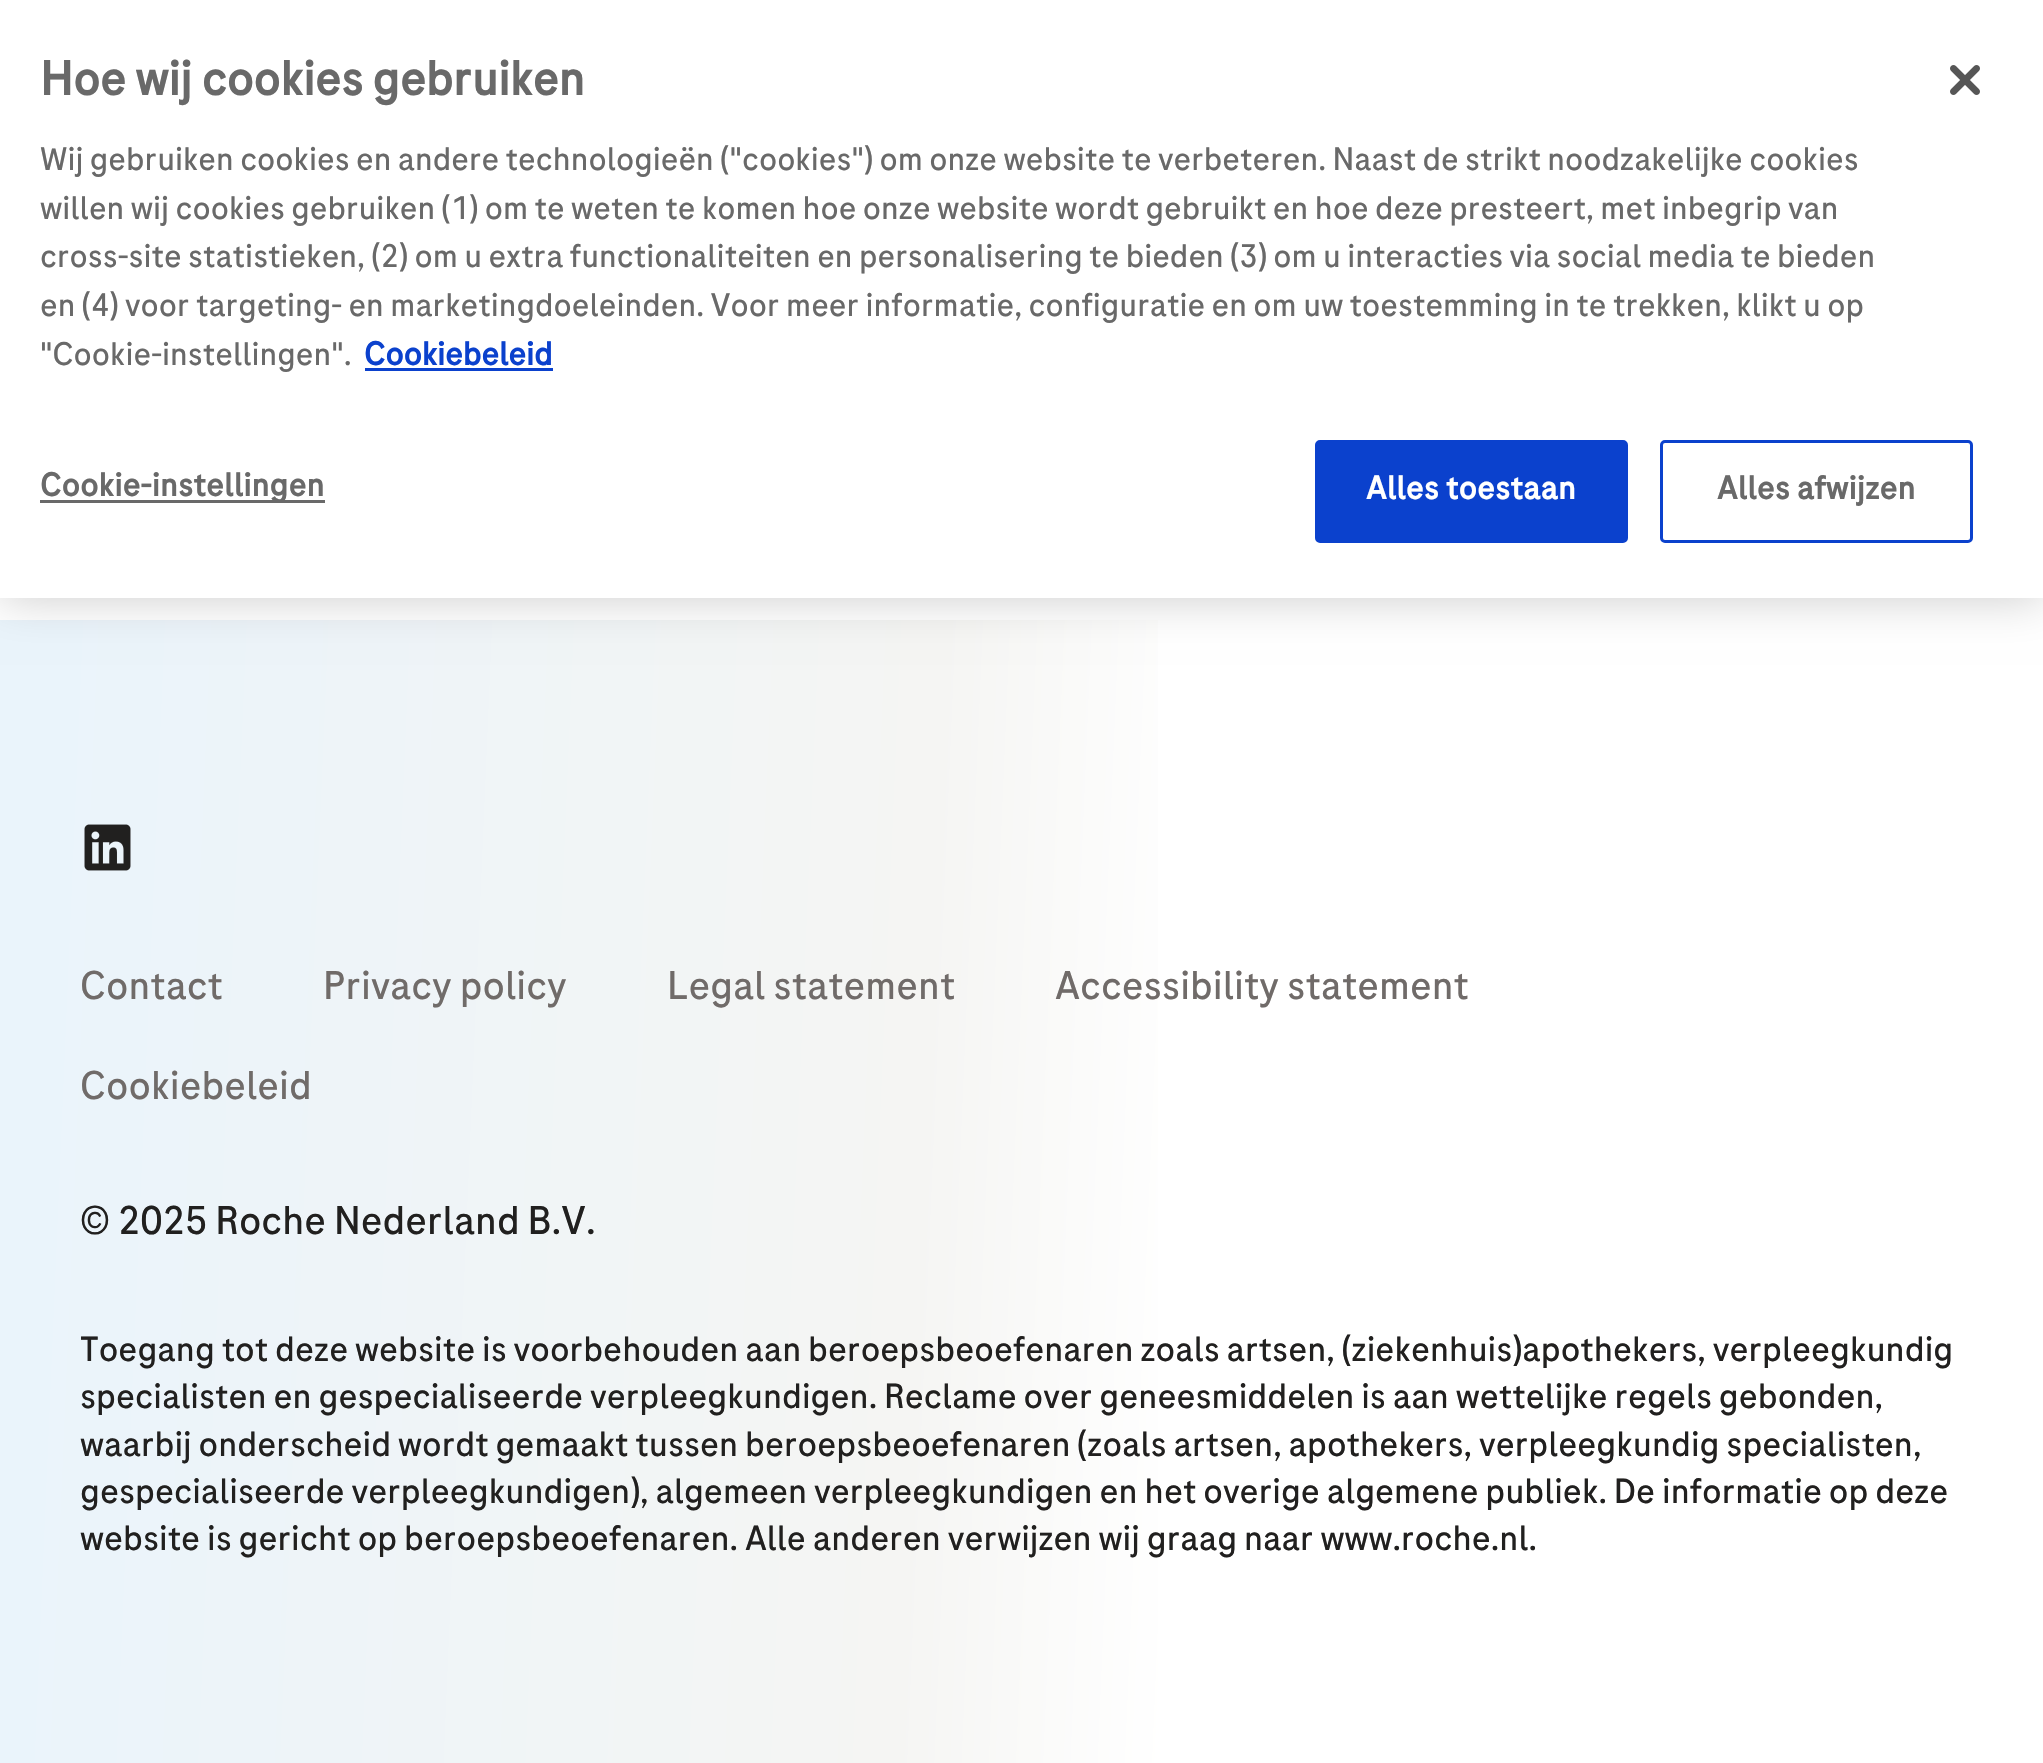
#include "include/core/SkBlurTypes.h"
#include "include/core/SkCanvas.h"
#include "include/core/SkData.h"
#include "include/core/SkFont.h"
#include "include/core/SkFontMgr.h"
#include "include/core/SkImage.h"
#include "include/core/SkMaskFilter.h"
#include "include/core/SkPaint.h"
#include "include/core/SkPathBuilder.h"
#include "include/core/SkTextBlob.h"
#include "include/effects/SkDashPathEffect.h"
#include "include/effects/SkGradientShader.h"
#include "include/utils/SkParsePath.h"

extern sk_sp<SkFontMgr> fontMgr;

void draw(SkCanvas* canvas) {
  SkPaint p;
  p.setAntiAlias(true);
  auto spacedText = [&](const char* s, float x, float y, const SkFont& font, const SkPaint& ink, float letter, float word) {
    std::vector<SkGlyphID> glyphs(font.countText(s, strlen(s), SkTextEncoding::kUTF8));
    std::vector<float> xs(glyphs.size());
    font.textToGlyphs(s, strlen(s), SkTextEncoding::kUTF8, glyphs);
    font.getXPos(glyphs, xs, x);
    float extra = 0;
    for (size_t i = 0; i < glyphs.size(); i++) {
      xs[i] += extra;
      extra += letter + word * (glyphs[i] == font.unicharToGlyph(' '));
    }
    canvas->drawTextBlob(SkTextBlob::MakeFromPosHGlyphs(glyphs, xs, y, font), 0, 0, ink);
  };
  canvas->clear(SK_ColorWHITE);
  {
    const SkColor colors[] = {SkColorSetRGB(234, 244, 251), SkColorSetRGB(245, 245, 243), SK_ColorWHITE};
    const float stops[] = {0.02f, 0.45f, 0.58f};
    const SkPoint ends[] = {{-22, 1148}, {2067, 1237}};
    p.setShader(SkGradientShader::MakeLinear(ends, colors, stops, 3, SkTileMode::kClamp));
    p.setAlpha(255);
  }
  canvas->drawRect(SkRect::MakeLTRB(0, 620, 1158, 1763), p);
  p.setShader(nullptr);
  p.setColor(SkColorSetARGB(51, 0, 0, 0));
  p.setMaskFilter(SkMaskFilter::MakeBlur(kNormal_SkBlurStyle, 22.5f));
  canvas->drawRect(SkRect::MakeLTRB(0, 0, 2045, 598), p);
  p.setMaskFilter(nullptr);
  p.setColor(SK_ColorWHITE);
  canvas->drawRect(SkRect::MakeLTRB(0, 0, 2043, 598), p);
  p.setColor(SkColorSetRGB(11, 65, 205));
  canvas->drawRect(SkRect::MakeLTRB(365, 368, 553, 371), p);
  p.setColor(SkColorSetRGB(105, 105, 105));
  canvas->drawRect(SkRect::MakeLTRB(40, 500, 325, 503), p);
  p.setColor(SkColorSetRGB(11, 65, 205));
  canvas->drawRoundRect(SkRect::MakeLTRB(1316.5f, 441.5f, 1626.5f, 541.5f), 3.5f, 3.5f, p);
  p.setStyle(SkPaint::kStroke_Style);
  p.setStrokeWidth(3);
  canvas->drawRoundRect(SkRect::MakeLTRB(1316.5f, 441.5f, 1626.5f, 541.5f), 3.5f, 3.5f, p);
  canvas->drawRoundRect(SkRect::MakeLTRB(1661.5f, 441.5f, 1971.5f, 541.5f), 3.5f, 3.5f, p);
  canvas->drawImageRect(SkImages::DeferredFromEncodedData(SkData::MakeFromFileName("images/1.png")), SkRect::MakeLTRB(1950, 65, 1980, 95), SkSamplingOptions());
  canvas->drawImageRect(SkImages::DeferredFromEncodedData(SkData::MakeFromFileName("images/2.png")), SkRect::MakeLTRB(84, 824, 131, 871), SkSamplingOptions());
  SkFont font1(fontMgr->matchFamilyStyle("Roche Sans", SkFontStyle::Bold()), 48);
  font1.setSubpixel(true);
  p.setStyle(SkPaint::kFill_Style);
  p.setColor(SkColorSetRGB(105, 105, 105));
  canvas->drawString("Hoe wij cookies gebruiken", 40, 95, font1, p);
  SkFont font2(fontMgr->matchFamilyStyle("Roche Sans", SkFontStyle::Normal()), 32.52f);
  font2.setSubpixel(true);
  canvas->drawString("Wij gebruiken cookies en andere technologieën (\"cookies\") om onze website te verbeteren. Naast de strikt noodzakelijke cookies", 40, 170, font2, p);
  canvas->drawString("willen wij cookies gebruiken (1) om te weten te komen hoe onze website wordt gebruikt en hoe deze presteert, met inbegrip van", 40, 219, font2, p);
  canvas->drawString("cross-site statistieken, (2) om u extra functionaliteiten en personalisering te bieden (3) om u interacties via social media te bieden", 40, 267, font2, p);
  canvas->drawString("en (4) voor targeting- en marketingdoeleinden. Voor meer informatie, configuratie en om uw toestemming in te trekken, klikt u op", 40, 316, font2, p);
  canvas->drawString("\"Cookie-instellingen\".", 40, 365, font2, p);
  SkFont font3(fontMgr->matchFamilyStyle("Roche Sans", SkFontStyle::Bold()), 32.52f);
  font3.setSubpixel(true);
  p.setColor(SkColorSetRGB(11, 65, 205));
  canvas->drawString("Cookiebeleid", 364, 365, font3, p);
  p.setColor(SkColorSetRGB(105, 105, 105));
  spacedText("Cookie-instellingen", 40, 496, font3, p, 0.3f, 0);
  p.setColor(SK_ColorWHITE);
  spacedText("Alles toestaan", 1366, 499, font3, p, 0.3f, 0);
  p.setColor(SkColorSetRGB(105, 105, 105));
  spacedText("Alles afwijzen", 1717, 499, font3, p, 0.3f, 0);
  SkFont font4(fontMgr->matchFamilyStyle("Roche Sans", SkFontStyle::Normal()), 40);
  font4.setSubpixel(true);
  p.setColor(SkColorSetRGB(112, 107, 105));
  canvas->drawString("Contact", 80, 999, font4, p);
  canvas->drawString("Privacy policy", 323, 999, font4, p);
  canvas->drawString("Legal statement", 667, 999, font4, p);
  canvas->drawString("Accessibility statement", 1055, 999, font4, p);
  canvas->drawString("Cookiebeleid", 80, 1099, font4, p);
  p.setColor(SkColorSetRGB(33, 32, 31));
  canvas->drawString("© 2025 Roche Nederland B.V.", 80, 1234, font4, p);
  SkFont font5(fontMgr->matchFamilyStyle("Roche Sans", SkFontStyle::Normal()), 35);
  font5.setSubpixel(true);
  canvas->drawString("Toegang tot deze website is voorbehouden aan beroepsbeoefenaren zoals artsen, (ziekenhuis)apothekers, verpleegkundig", 80, 1361, font5, p);
  canvas->drawString("specialisten en gespecialiseerde verpleegkundigen. Reclame over geneesmiddelen is aan wettelijke regels gebonden,", 80, 1408, font5, p);
  canvas->drawString("waarbij onderscheid wordt gemaakt tussen beroepsbeoefenaren (zoals artsen, apothekers, verpleegkundig specialisten,", 80, 1456, font5, p);
  canvas->drawString("gespecialiseerde verpleegkundigen), algemeen verpleegkundigen en het overige algemene publiek. De informatie op deze", 80, 1503, font5, p);
  canvas->drawString("website is gericht op beroepsbeoefenaren. Alle anderen verwijzen wij graag naar www.roche.nl.", 80, 1550, font5, p);
}
